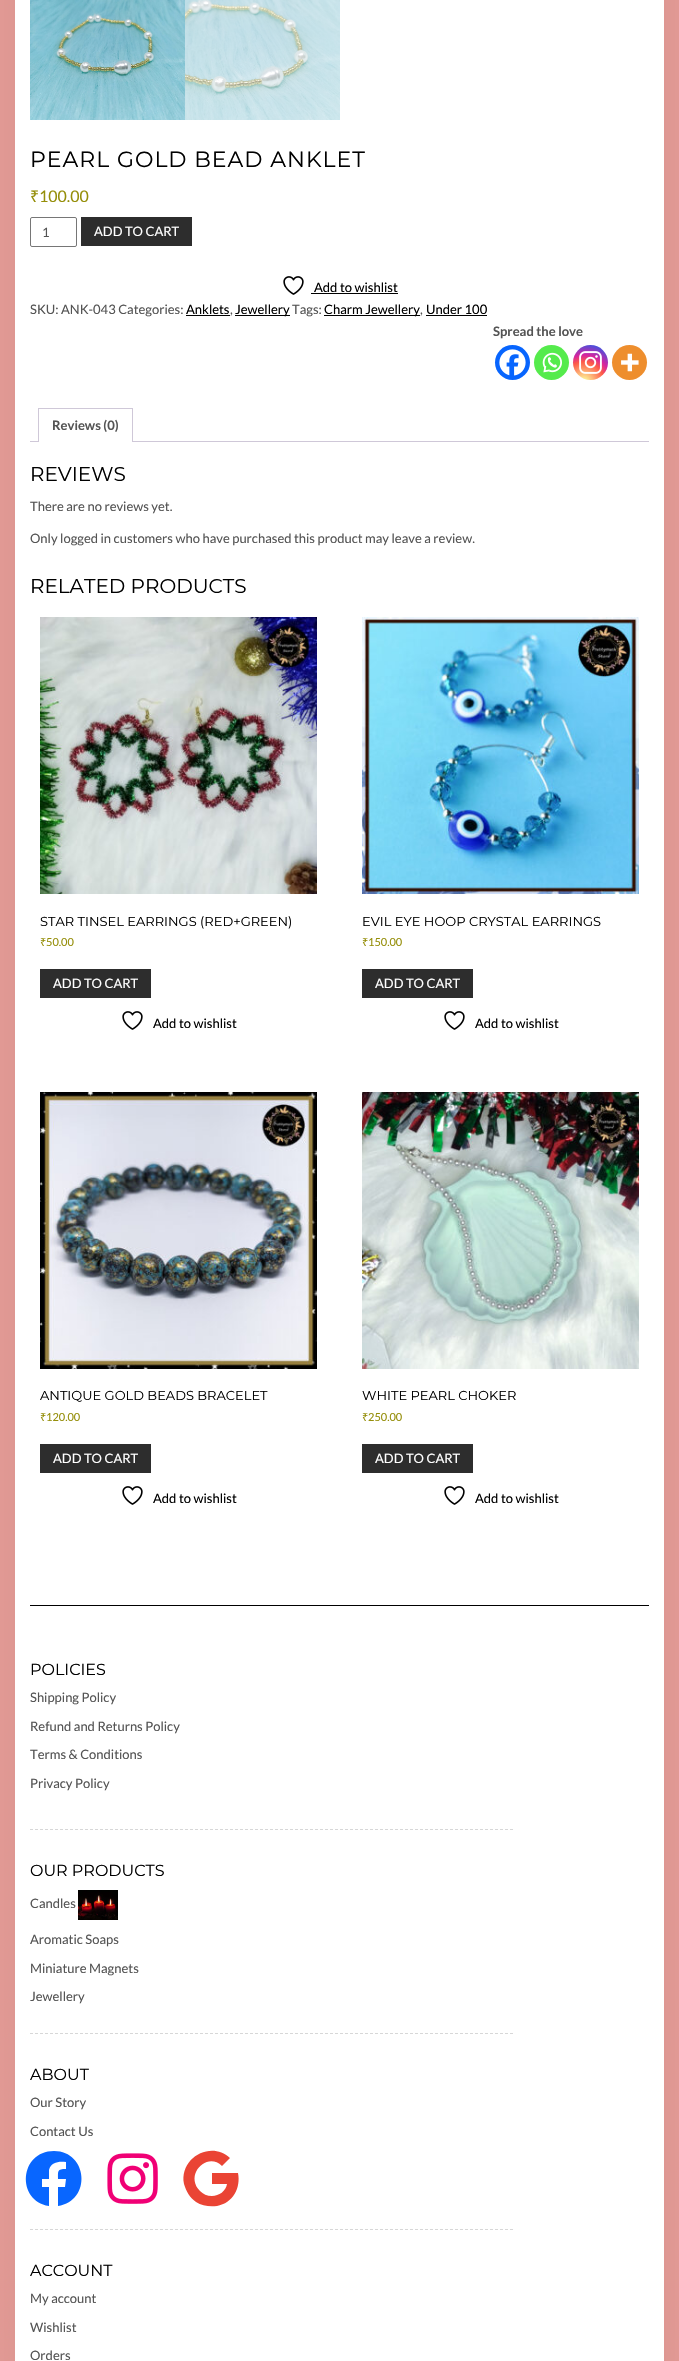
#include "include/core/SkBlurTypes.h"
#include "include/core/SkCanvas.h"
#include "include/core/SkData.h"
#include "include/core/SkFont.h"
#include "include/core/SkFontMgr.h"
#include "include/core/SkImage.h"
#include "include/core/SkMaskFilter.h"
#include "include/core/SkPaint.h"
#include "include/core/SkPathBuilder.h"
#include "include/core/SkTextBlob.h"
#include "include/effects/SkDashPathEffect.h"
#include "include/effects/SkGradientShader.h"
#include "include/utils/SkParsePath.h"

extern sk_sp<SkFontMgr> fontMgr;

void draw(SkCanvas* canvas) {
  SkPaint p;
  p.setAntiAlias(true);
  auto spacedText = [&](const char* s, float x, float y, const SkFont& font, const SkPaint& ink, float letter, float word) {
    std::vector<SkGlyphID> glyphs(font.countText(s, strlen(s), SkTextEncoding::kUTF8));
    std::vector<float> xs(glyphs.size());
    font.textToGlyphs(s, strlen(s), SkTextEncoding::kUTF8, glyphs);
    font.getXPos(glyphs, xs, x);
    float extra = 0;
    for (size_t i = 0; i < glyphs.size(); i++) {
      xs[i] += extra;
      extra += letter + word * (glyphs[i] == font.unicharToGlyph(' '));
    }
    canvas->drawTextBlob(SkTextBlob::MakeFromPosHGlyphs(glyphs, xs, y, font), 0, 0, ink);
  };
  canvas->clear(SkColorSetRGB(229, 156, 151));
  p.setColor(SkColorSetARGB(15, 0, 0, 0));
  p.setMaskFilter(SkMaskFilter::MakeBlur(kNormal_SkBlurStyle, 25));
  canvas->drawRect(SkRect::MakeLTRB(15, -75, 664, 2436), p);
  p.setMaskFilter(nullptr);
  p.setColor(SK_ColorWHITE);
  canvas->drawRect(SkRect::MakeLTRB(15, 0, 664, 2361), p);
  canvas->drawImageRect(SkImages::DeferredFromEncodedData(SkData::MakeFromFileName("images/1.png")), SkRect::MakeLTRB(30, 0, 185, 120), SkSamplingOptions());
  canvas->drawImageRect(SkImages::DeferredFromEncodedData(SkData::MakeFromFileName("images/2.png")), SkRect::MakeLTRB(185, 0, 340, 120), SkSamplingOptions());
  p.setStyle(SkPaint::kStroke_Style);
  p.setStrokeWidth(1);
  p.setColor(SkColorSetRGB(118, 118, 118));
  canvas->drawRoundRect(SkRect::MakeLTRB(30.5f, 217.5f, 76.5f, 246.5f), 1.5f, 1.5f, p);
  p.setStyle(SkPaint::kFill_Style);
  p.setColor(SkColorSetRGB(45, 45, 45));
  canvas->drawRect(SkRect::MakeLTRB(81, 217, 192, 246), p);
  canvas->drawImageRect(SkImages::DeferredFromEncodedData(SkData::MakeFromFileName("images/3.png")), SkRect::MakeLTRB(283, 276, 304, 295), SkSamplingOptions());
  p.setColor(SK_ColorBLACK);
  canvas->drawRect(SkRect::MakeLTRB(311, 293, 398, 294), p);
  canvas->drawRect(SkRect::MakeLTRB(186, 315, 230, 316), p);
  canvas->drawRect(SkRect::MakeLTRB(235, 315, 290, 316), p);
  canvas->drawRect(SkRect::MakeLTRB(324, 315, 420, 316), p);
  canvas->drawRect(SkRect::MakeLTRB(426, 315, 487, 316), p);
  p.setColor(SkColorSetRGB(7, 101, 254));
  canvas->drawCircle(512.5f, 362.5f, 17.5f, p);
  canvas->drawImageRect(SkImages::DeferredFromEncodedData(SkData::MakeFromFileName("images/4.png")), SkRect::MakeLTRB(499, 349, 526, 376), SkSamplingOptions());
  p.setColor(SkColorSetRGB(85, 235, 76));
  canvas->drawCircle(551.5f, 362.5f, 17.5f, p);
  canvas->drawImageRect(SkImages::DeferredFromEncodedData(SkData::MakeFromFileName("images/5.png")), SkRect::MakeLTRB(542, 352, 562, 373), SkSamplingOptions());
  {
    const SkColor colors[] = {SkColorSetRGB(253, 244, 151), SkColorSetRGB(253, 244, 151), SkColorSetRGB(253, 89, 73), SkColorSetRGB(214, 36, 159), SkColorSetRGB(40, 90, 235)};
    const float stops[] = {0, 0.05f, 0.45f, 0.6f, 0.9f};
    p.setShader(SkGradientShader::MakeRadial({584, 382}, 45, colors, stops, 5, SkTileMode::kClamp));
    p.setAlpha(255);
  }
  canvas->drawCircle(590.5f, 362.5f, 17.5f, p);
  canvas->drawImageRect(SkImages::DeferredFromEncodedData(SkData::MakeFromFileName("images/6.png")), SkRect::MakeLTRB(579, 351, 602, 374), SkSamplingOptions());
  p.setShader(nullptr);
  p.setColor(SkColorSetRGB(238, 142, 45));
  canvas->drawCircle(629.5f, 362.5f, 17.5f, p);
  canvas->drawImageRect(SkImages::DeferredFromEncodedData(SkData::MakeFromFileName("images/7.png")), SkRect::MakeLTRB(621, 353, 639, 372), SkSamplingOptions());
  p.setColor(SkColorSetRGB(207, 200, 216));
  canvas->drawRect(SkRect::MakeLTRB(38, 408, 133, 409), p);
  canvas->drawRect(SkRect::MakeLTRB(30, 441, 649, 442), p);
  canvas->drawRect(SkRect::MakeLTRB(132, 408, 133, 442), p);
  p.setColor(SK_ColorWHITE);
  canvas->drawRect(SkRect::MakeLTRB(38, 441, 133, 442), p);
  p.setColor(SkColorSetRGB(207, 200, 216));
  canvas->drawRect(SkRect::MakeLTRB(38, 408, 39, 442), p);
  canvas->drawRect(SkRect::MakeLTRB(132, 441, 137, 442), p);
  canvas->drawImageRect(SkImages::DeferredFromEncodedData(SkData::MakeFromFileName("images/8.png")), SkRect::MakeLTRB(40, 617, 317, 894), SkSamplingOptions());
  p.setColor(SkColorSetRGB(45, 45, 45));
  canvas->drawRect(SkRect::MakeLTRB(40, 969, 151, 998), p);
  canvas->drawImageRect(SkImages::DeferredFromEncodedData(SkData::MakeFromFileName("images/3.png")), SkRect::MakeLTRB(122, 1011, 143, 1030), SkSamplingOptions());
  canvas->drawImageRect(SkImages::DeferredFromEncodedData(SkData::MakeFromFileName("images/9.png")), SkRect::MakeLTRB(362, 617, 639, 894), SkSamplingOptions());
  canvas->drawRect(SkRect::MakeLTRB(362, 969, 473, 998), p);
  canvas->drawImageRect(SkImages::DeferredFromEncodedData(SkData::MakeFromFileName("images/3.png")), SkRect::MakeLTRB(444, 1011, 465, 1030), SkSamplingOptions());
  canvas->drawImageRect(SkImages::DeferredFromEncodedData(SkData::MakeFromFileName("images/10.png")), SkRect::MakeLTRB(40, 1092, 317, 1369), SkSamplingOptions());
  canvas->drawRect(SkRect::MakeLTRB(40, 1444, 151, 1473), p);
  canvas->drawImageRect(SkImages::DeferredFromEncodedData(SkData::MakeFromFileName("images/3.png")), SkRect::MakeLTRB(122, 1486, 143, 1505), SkSamplingOptions());
  canvas->drawImageRect(SkImages::DeferredFromEncodedData(SkData::MakeFromFileName("images/11.png")), SkRect::MakeLTRB(362, 1092, 639, 1369), SkSamplingOptions());
  canvas->drawRect(SkRect::MakeLTRB(362, 1444, 473, 1473), p);
  canvas->drawImageRect(SkImages::DeferredFromEncodedData(SkData::MakeFromFileName("images/3.png")), SkRect::MakeLTRB(444, 1486, 465, 1505), SkSamplingOptions());
  p.setColor(SK_ColorBLACK);
  canvas->drawRect(SkRect::MakeLTRB(30, 1605, 649, 1606), p);
  p.setStyle(SkPaint::kStroke_Style);
  p.setColor(SkColorSetRGB(215, 215, 215));
  p.setPathEffect(SkDashPathEffect::Make({{3, 2}}, 0));
  canvas->drawPath(SkPathBuilder().moveTo(30, 1829.5f).lineTo(513, 1829.5f).detach(), p);
  p.setPathEffect(nullptr);
  canvas->drawImageRect(SkImages::DeferredFromEncodedData(SkData::MakeFromFileName("images/12.png")), SkRect::MakeLTRB(78, 1890, 118, 1920), SkSamplingOptions());
  p.setPathEffect(SkDashPathEffect::Make({{3, 2}}, 0));
  canvas->drawPath(SkPathBuilder().moveTo(30, 2033.5f).lineTo(513, 2033.5f).detach(), p);
  p.setPathEffect(nullptr);
  p.setStyle(SkPaint::kFill_Style);
  p.setColor(SkColorSetRGB(8, 102, 255));
  canvas->drawPath(SkPathBuilder().moveTo(54, 2151).cubicTo(19, 2151, 16, 2201, 49, 2206).lineTo(49, 2187).lineTo(42, 2187).lineTo(42, 2179).lineTo(49, 2179).lineTo(49, 2170).cubicTo(51, 2162, 59, 2161, 66, 2162).lineTo(66, 2169).cubicTo(57, 2169, 58, 2171, 58, 2179).lineTo(66, 2179).lineTo(65, 2187).lineTo(58, 2187).lineTo(58, 2206).cubicTo(92, 2201, 88, 2151, 54, 2151).close().detach(), p);
  canvas->drawImageRect(SkImages::DeferredFromEncodedData(SkData::MakeFromFileName("images/13.png")), SkRect::MakeLTRB(107, 2153, 158, 2204), SkSamplingOptions());
  p.setColor(SkColorSetRGB(234, 68, 52));
  canvas->drawPath(SkPathBuilder().moveTo(212, 2173).lineTo(212, 2184).lineTo(227, 2184).cubicTo(226, 2191, 219, 2196, 212, 2196).cubicTo(207, 2196, 203, 2194, 200, 2191).cubicTo(184, 2175, 207, 2151, 222, 2166).lineTo(230, 2158).cubicTo(211, 2140, 179, 2158, 184, 2184).cubicTo(186, 2191, 190, 2198, 196, 2202).cubicTo(202, 2206, 210, 2207, 217, 2206).cubicTo(233, 2203, 241, 2188, 238, 2173).close().detach(), p);
  p.setStyle(SkPaint::kStroke_Style);
  p.setColor(SkColorSetRGB(215, 215, 215));
  p.setPathEffect(SkDashPathEffect::Make({{3, 2}}, 0));
  canvas->drawPath(SkPathBuilder().moveTo(30, 2229.5f).lineTo(513, 2229.5f).detach(), p);
  p.setPathEffect(nullptr);
  SkFont font1(fontMgr->matchFamilyStyle("Montserrat", SkFontStyle::Normal()), 22);
  font1.setSubpixel(true);
  p.setStyle(SkPaint::kFill_Style);
  p.setColor(SK_ColorBLACK);
  spacedText("PEARL GOLD BEAD ANKLET", 30, 167, font1, p, 1, 0);
  SkFont font2(fontMgr->matchFamilyStyle("Noto Sans", SkFontStyle::Normal()), 16);
  font2.setSubpixel(true);
  p.setColor(SkColorSetRGB(149, 142, 9));
  canvas->drawString("₹", 30, 202, font2, p);
  SkFont font3(fontMgr->matchFamilyStyle("Lato", SkFontStyle::Normal()), 16);
  font3.setSubpixel(true);
  canvas->drawString("100.00", 39, 202, font3, p);
  SkFont font4(fontMgr->matchFamilyStyle("Lato", SkFontStyle::Normal()), 13);
  font4.setSubpixel(true);
  p.setColor(SkColorSetRGB(84, 84, 84));
  canvas->drawString("1", 42, 237, font4, p);
  p.setColor(SK_ColorWHITE);
  canvas->drawString("ADD TO CART", 94, 236, font4, p);
  p.setColor(SK_ColorBLACK);
  canvas->drawString("Add to wishlist", 314, 292, font4, p);
  p.setColor(SkColorSetRGB(84, 84, 84));
  canvas->drawString("SKU: ANK-043 Categories:", 30, 314, font4, p);
  p.setColor(SK_ColorBLACK);
  canvas->drawString("Anklets", 186, 314, font4, p);
  p.setColor(SkColorSetRGB(84, 84, 84));
  canvas->drawString(",", 230, 314, font4, p);
  p.setColor(SK_ColorBLACK);
  canvas->drawString("Jewellery", 235, 314, font4, p);
  p.setColor(SkColorSetRGB(84, 84, 84));
  canvas->drawString("Tags:", 292, 314, font4, p);
  p.setColor(SK_ColorBLACK);
  canvas->drawString("Charm Jewellery", 324, 314, font4, p);
  p.setColor(SkColorSetRGB(84, 84, 84));
  canvas->drawString(",", 420, 314, font4, p);
  p.setColor(SK_ColorBLACK);
  canvas->drawString("Under 100", 426, 314, font4, p);
  SkFont font5(fontMgr->matchFamilyStyle("Lato", SkFontStyle::Bold()), 13);
  font5.setSubpixel(true);
  p.setColor(SkColorSetRGB(84, 84, 84));
  canvas->drawString("Spread the love", 493, 336, font5, p);
  canvas->drawString("Reviews (0)", 52, 430, font5, p);
  SkFont font6(fontMgr->matchFamilyStyle("Montserrat", SkFontStyle::Normal()), 20);
  font6.setSubpixel(true);
  p.setColor(SK_ColorBLACK);
  canvas->drawString("REVIEWS", 30, 481, font6, p);
  p.setColor(SkColorSetRGB(84, 84, 84));
  canvas->drawString("There are no reviews yet.", 30, 511, font4, p);
  canvas->drawString("Only logged in customers who have purchased this product may leave a review.", 30, 543, font4, p);
  p.setColor(SK_ColorBLACK);
  canvas->drawString("RELATED PRODUCTS", 30, 593, font6, p);
  SkFont font7(fontMgr->matchFamilyStyle("Montserrat", SkFontStyle::Normal()), 13);
  font7.setSubpixel(true);
  canvas->drawString("STAR TINSEL EARRINGS (RED+GREEN)", 40, 926, font7, p);
  SkFont font8(fontMgr->matchFamilyStyle("Noto Sans", SkFontStyle::Normal()), 11);
  font8.setSubpixel(true);
  p.setColor(SkColorSetRGB(149, 142, 9));
  canvas->drawString("₹", 40, 946, font8, p);
  SkFont font9(fontMgr->matchFamilyStyle("Lato", SkFontStyle::Normal()), 11);
  font9.setSubpixel(true);
  canvas->drawString("50.00", 46, 946, font9, p);
  p.setColor(SK_ColorWHITE);
  canvas->drawString("ADD TO CART", 53, 988, font4, p);
  p.setColor(SK_ColorBLACK);
  canvas->drawString("Add to wishlist", 153, 1028, font4, p);
  canvas->drawString("EVIL EYE HOOP CRYSTAL EARRINGS", 362, 926, font7, p);
  p.setColor(SkColorSetRGB(149, 142, 9));
  canvas->drawString("₹", 362, 946, font8, p);
  canvas->drawString("150.00", 368, 946, font9, p);
  p.setColor(SK_ColorWHITE);
  canvas->drawString("ADD TO CART", 375, 988, font4, p);
  p.setColor(SK_ColorBLACK);
  canvas->drawString("Add to wishlist", 475, 1028, font4, p);
  canvas->drawString("ANTIQUE GOLD BEADS BRACELET", 40, 1400, font7, p);
  p.setColor(SkColorSetRGB(149, 142, 9));
  canvas->drawString("₹", 40, 1421, font8, p);
  canvas->drawString("120.00", 46, 1421, font9, p);
  p.setColor(SK_ColorWHITE);
  canvas->drawString("ADD TO CART", 53, 1463, font4, p);
  p.setColor(SK_ColorBLACK);
  canvas->drawString("Add to wishlist", 153, 1503, font4, p);
  canvas->drawString("WHITE PEARL CHOKER", 362, 1400, font7, p);
  p.setColor(SkColorSetRGB(149, 142, 9));
  canvas->drawString("₹", 362, 1421, font8, p);
  canvas->drawString("250.00", 368, 1421, font9, p);
  p.setColor(SK_ColorWHITE);
  canvas->drawString("ADD TO CART", 375, 1463, font4, p);
  p.setColor(SK_ColorBLACK);
  canvas->drawString("Add to wishlist", 475, 1503, font4, p);
  SkFont font10(fontMgr->matchFamilyStyle("Montserrat", SkFontStyle::Normal()), 16);
  font10.setSubpixel(true);
  canvas->drawString("POLICIES", 30, 1675, font10, p);
  p.setColor(SkColorSetRGB(84, 84, 84));
  canvas->drawString("Shipping Policy", 30, 1702, font4, p);
  canvas->drawString("Refund and Returns Policy", 30, 1731, font4, p);
  canvas->drawString("Terms & Conditions", 30, 1759, font4, p);
  canvas->drawString("Privacy Policy", 30, 1788, font4, p);
  p.setColor(SK_ColorBLACK);
  canvas->drawString("OUR PRODUCTS", 30, 1876, font10, p);
  p.setColor(SkColorSetRGB(84, 84, 84));
  canvas->drawString("Candles", 30, 1908, font4, p);
  canvas->drawString("Aromatic Soaps", 30, 1944, font4, p);
  canvas->drawString("Miniature Magnets", 30, 1973, font4, p);
  canvas->drawString("Jewellery", 30, 2001, font4, p);
  p.setColor(SK_ColorBLACK);
  canvas->drawString("ABOUT", 30, 2080, font10, p);
  p.setColor(SkColorSetRGB(84, 84, 84));
  canvas->drawString("Our Story", 30, 2107, font4, p);
  canvas->drawString("Contact Us", 30, 2136, font4, p);
  p.setColor(SK_ColorBLACK);
  canvas->drawString("ACCOUNT", 30, 2276, font10, p);
  p.setColor(SkColorSetRGB(84, 84, 84));
  canvas->drawString("My account", 30, 2303, font4, p);
  canvas->drawString("Wishlist", 30, 2332, font4, p);
  canvas->drawString("Orders", 30, 2360, font4, p);
}
